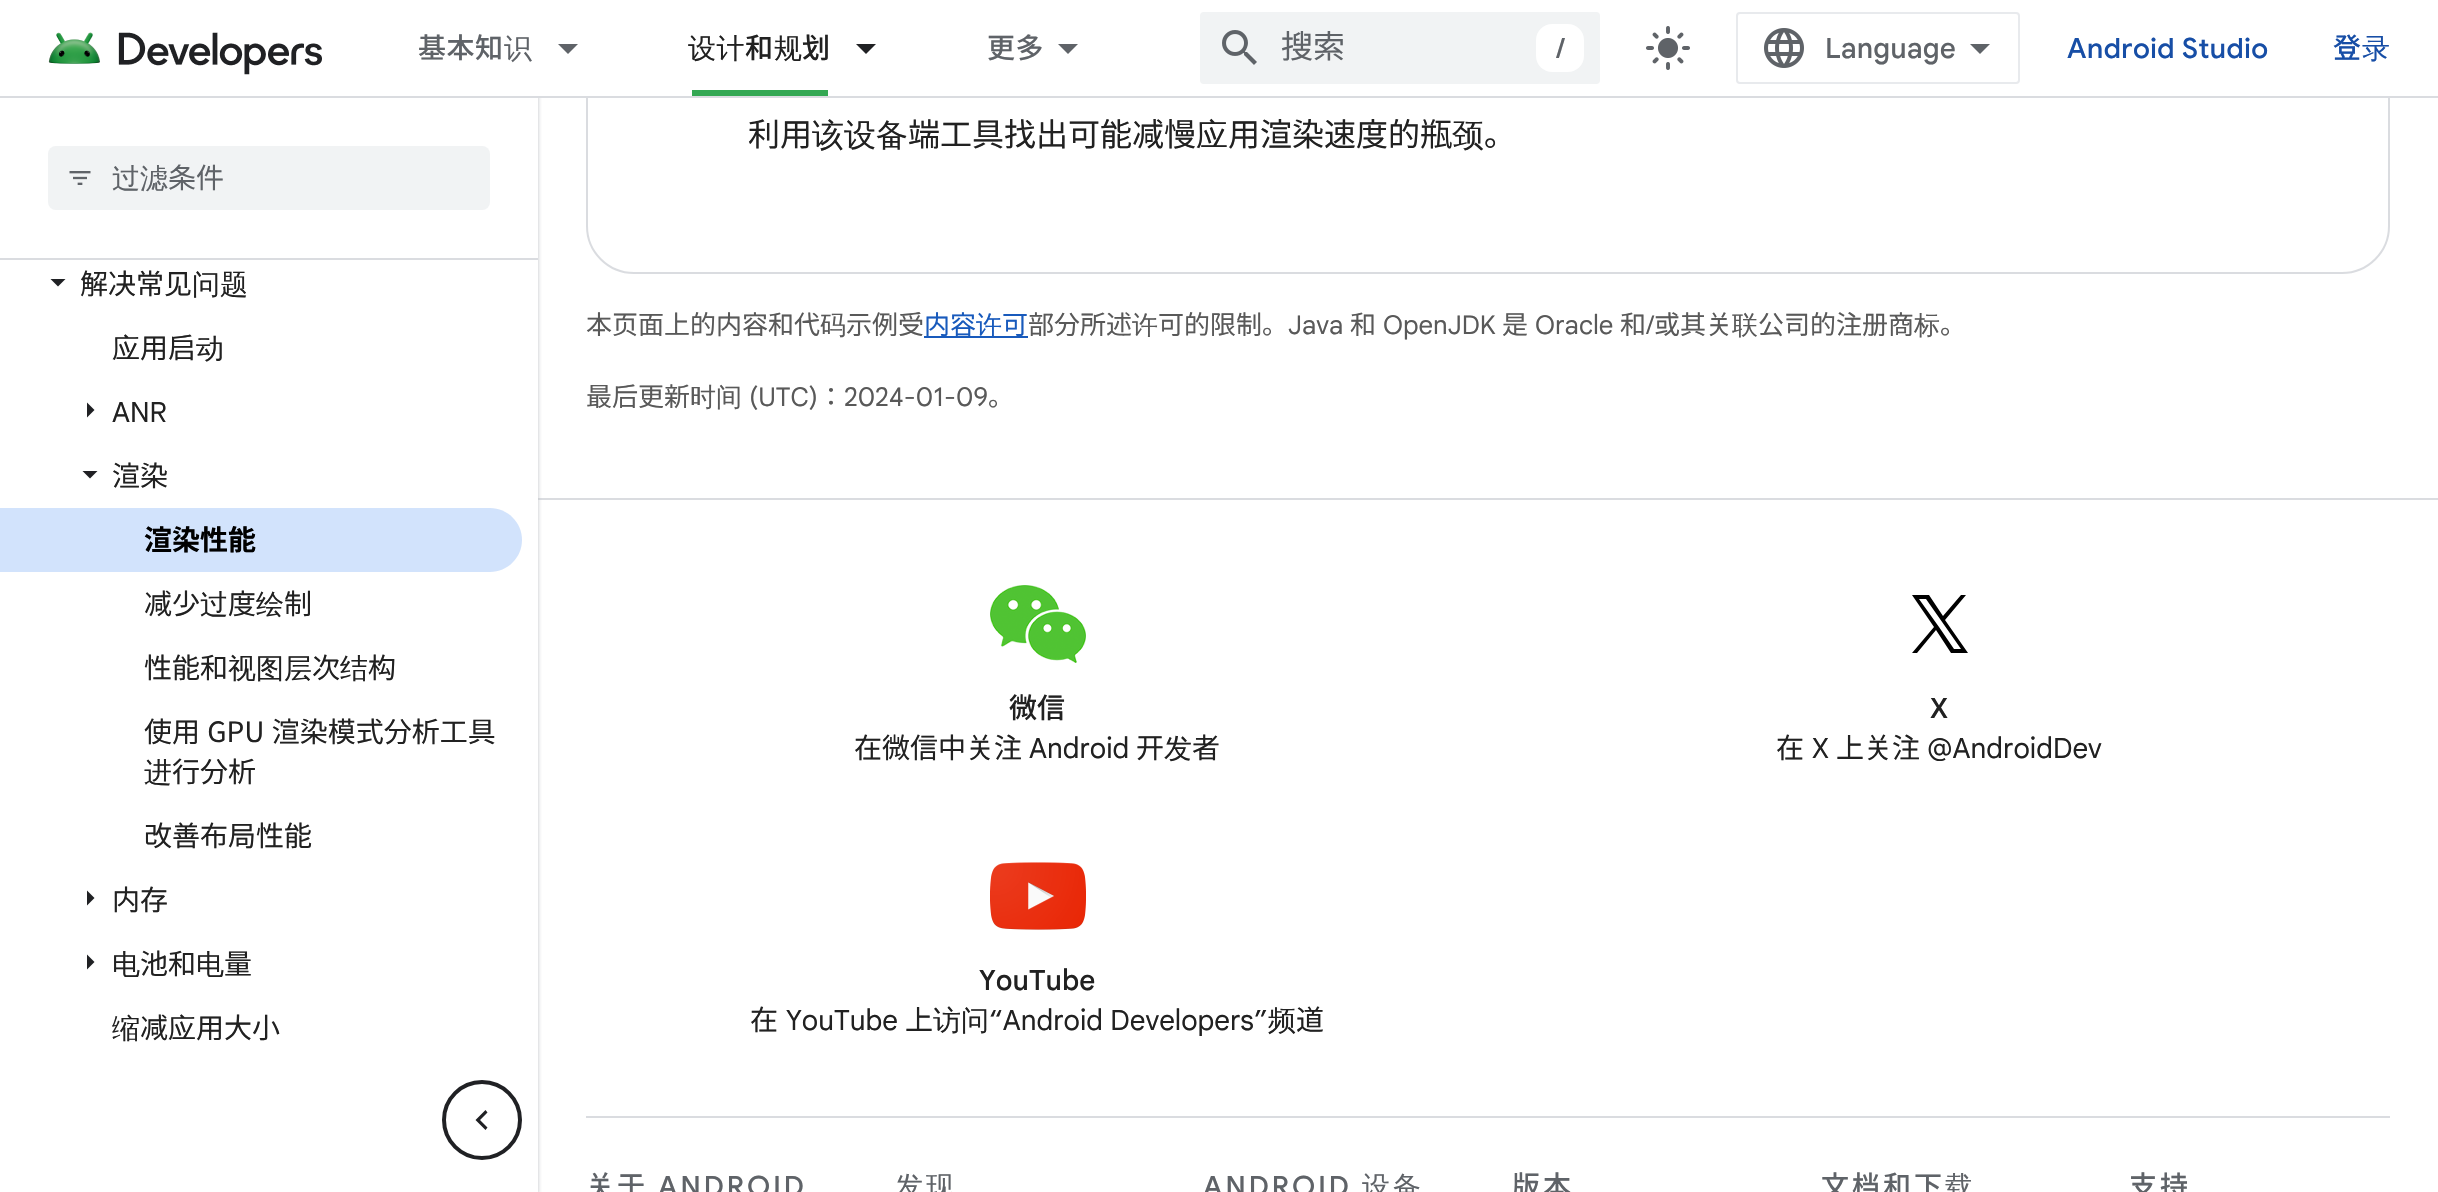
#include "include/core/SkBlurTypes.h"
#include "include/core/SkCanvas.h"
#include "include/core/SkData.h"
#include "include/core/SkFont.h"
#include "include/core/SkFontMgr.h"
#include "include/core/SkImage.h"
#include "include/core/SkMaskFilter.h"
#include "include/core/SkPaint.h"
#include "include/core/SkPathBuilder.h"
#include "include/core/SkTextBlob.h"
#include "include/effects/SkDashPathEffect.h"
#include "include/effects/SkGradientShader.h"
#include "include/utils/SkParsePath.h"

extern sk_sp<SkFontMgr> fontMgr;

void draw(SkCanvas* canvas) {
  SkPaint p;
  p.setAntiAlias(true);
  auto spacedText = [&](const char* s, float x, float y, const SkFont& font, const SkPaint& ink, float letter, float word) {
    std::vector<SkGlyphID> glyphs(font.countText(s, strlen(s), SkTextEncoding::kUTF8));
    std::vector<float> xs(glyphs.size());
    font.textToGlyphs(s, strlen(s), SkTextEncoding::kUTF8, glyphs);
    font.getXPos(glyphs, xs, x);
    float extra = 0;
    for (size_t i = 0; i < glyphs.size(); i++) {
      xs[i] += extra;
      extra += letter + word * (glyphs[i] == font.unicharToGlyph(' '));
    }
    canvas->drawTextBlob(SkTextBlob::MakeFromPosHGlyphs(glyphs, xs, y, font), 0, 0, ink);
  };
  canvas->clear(SK_ColorWHITE);
  p.setColor(SkColorSetRGB(218, 220, 224));
  canvas->drawRect(SkRect::MakeLTRB(538, 498, 2438, 500), p);
  canvas->save();
  canvas->clipRect(SkRect::MakeLTRB(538, 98, 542, 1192));
  p.setColor(SkColorSetRGB(189, 193, 198));
  p.setMaskFilter(SkMaskFilter::MakeBlur(kNormal_SkBlurStyle, 2));
  canvas->drawRect(SkRect::MakeLTRB(0, 2, 538, 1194), p);
  p.setMaskFilter(nullptr);
  canvas->restore();
  p.setStyle(SkPaint::kStroke_Style);
  p.setStrokeWidth(2);
  p.setColor(SkColorSetRGB(218, 220, 224));
  canvas->drawRoundRect(SkRect::MakeLTRB(587, -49, 2389, 273), 47, 47, p);
  p.setStyle(SkPaint::kFill_Style);
  p.setColor(SK_ColorWHITE);
  canvas->drawRect(SkRect::MakeLTRB(538, 0, 2390, 96), p);
  p.setColor(SkColorSetRGB(218, 220, 224));
  canvas->drawRect(SkRect::MakeLTRB(0, 96, 2438, 98), p);
  canvas->drawImageRect(SkImages::DeferredFromEncodedData(SkData::MakeFromFileName("images/1.png")), SkRect::MakeLTRB(48, 32, 322, 75), SkSamplingOptions());
  p.setColor(SkColorSetRGB(95, 99, 104));
  canvas->drawPath(SkPathBuilder().moveTo(558, 44).lineTo(578, 44).lineTo(568, 54).close().detach(), p);
  p.setColor(SkColorSetRGB(52, 168, 83));
  canvas->drawRect(SkRect::MakeLTRB(692, 90, 828, 96), p);
  p.setColor(SkColorSetRGB(32, 33, 36));
  canvas->drawPath(SkPathBuilder().moveTo(856, 44).lineTo(876, 44).lineTo(866, 54).close().detach(), p);
  p.setColor(SkColorSetRGB(95, 99, 104));
  canvas->drawPath(SkPathBuilder().moveTo(1058, 44).lineTo(1078, 44).lineTo(1068, 54).close().detach(), p);
  p.setColor(SkColorSetRGB(241, 243, 244));
  canvas->drawRoundRect(SkRect::MakeLTRB(1200, 12, 1600, 84), 4, 4, p);
  canvas->drawImageRect(SkImages::DeferredFromEncodedData(SkData::MakeFromFileName("images/2.png")), SkRect::MakeLTRB(1222, 30, 1257, 65), SkSamplingOptions());
  p.setColor(SK_ColorWHITE);
  canvas->drawRoundRect(SkRect::MakeLTRB(1536, 24, 1584, 72), 16, 16, p);
  canvas->drawImageRect(SkImages::DeferredFromEncodedData(SkData::MakeFromFileName("images/3.png")), SkRect::MakeLTRB(1646, 26, 1690, 70), SkSamplingOptions());
  p.setStyle(SkPaint::kStroke_Style);
  p.setColor(SkColorSetRGB(232, 234, 237));
  canvas->drawRoundRect(SkRect::MakeLTRB(1737, 13, 2019, 83), 3, 3, p);
  canvas->drawImageRect(SkImages::DeferredFromEncodedData(SkData::MakeFromFileName("images/4.png")), SkRect::MakeLTRB(1764, 28, 1804, 68), SkSamplingOptions());
  p.setStyle(SkPaint::kFill_Style);
  p.setColor(SkColorSetRGB(95, 99, 104));
  canvas->drawPath(SkPathBuilder().moveTo(1980, 54).lineTo(1970, 44).lineTo(1990, 44).close().detach(), p);
  p.setColor(SkColorSetRGB(218, 220, 224));
  canvas->drawRect(SkRect::MakeLTRB(0, 258, 538, 260), p);
  p.setColor(SkColorSetRGB(241, 243, 244));
  canvas->drawRoundRect(SkRect::MakeLTRB(48, 146, 490, 210), 8, 8, p);
  canvas->drawImageRect(SkImages::DeferredFromEncodedData(SkData::MakeFromFileName("images/5.png")), SkRect::MakeLTRB(69, 171, 91, 185), SkSamplingOptions());
  p.setColor(SkColorSetRGB(32, 33, 36));
  canvas->drawPath(SkPathBuilder().moveTo(50.5f, 279).lineTo(65.5f, 279).lineTo(58, 286.5f).close().detach(), p);
  canvas->drawPath(SkPathBuilder().moveTo(87, 417.5f).lineTo(87, 402.5f).lineTo(94.5f, 410).close().detach(), p);
  canvas->drawPath(SkPathBuilder().moveTo(82.5f, 471).lineTo(97.5f, 471).lineTo(90, 478.5f).close().detach(), p);
  p.setColor(SkColorSetRGB(210, 227, 252));
  canvas->drawPath(SkPathBuilder().moveTo(0, 508).lineTo(490, 508).cubicTo(507.5f, 508, 522, 522.5f, 522, 540).cubicTo(522, 557.5f, 507.5f, 572, 490, 572).lineTo(0, 572).close().detach(), p);
  p.setColor(SkColorSetRGB(32, 33, 36));
  canvas->drawPath(SkPathBuilder().moveTo(87, 905.5f).lineTo(87, 890.5f).lineTo(94.5f, 898).close().detach(), p);
  canvas->drawPath(SkPathBuilder().moveTo(87, 969.5f).lineTo(87, 954.5f).lineTo(94.5f, 962).close().detach(), p);
  p.setColor(SkColorSetRGB(24, 90, 188));
  canvas->drawRect(SkRect::MakeLTRB(924, 336, 1028, 338), p);
  p.setColor(SkColorSetRGB(218, 220, 224));
  canvas->drawRect(SkRect::MakeLTRB(586, 1116, 2390, 1118), p);
  canvas->drawImageRect(SkImages::DeferredFromEncodedData(SkData::MakeFromFileName("images/6.png")), SkRect::MakeLTRB(990, 585, 1086, 663), SkSamplingOptions());
  p.setColor(SK_ColorBLACK);
  canvas->drawPath(SkPathBuilder(SkPathFillType::kEvenOdd).moveTo(1945, 620).lineTo(1968, 653).lineTo(1951, 653).lineTo(1936, 630).lineTo(1917, 653).lineTo(1912, 653).lineTo(1934, 627).lineTo(1912, 595).lineTo(1929, 595).lineTo(1943, 616).lineTo(1961, 595).lineTo(1966, 595).close().moveTo(1939, 627).lineTo(1954, 649).lineTo(1961, 649).lineTo(1926, 599).lineTo(1919, 599).close().detach(), p);
  canvas->drawImageRect(SkImages::DeferredFromEncodedData(SkData::MakeFromFileName("images/7.png")), SkRect::MakeLTRB(990, 862, 1086, 930), SkSamplingOptions());
  p.setStyle(SkPaint::kStroke_Style);
  p.setStrokeWidth(4);
  p.setColor(SkColorSetRGB(32, 33, 36));
  canvas->drawCircle(482, 1120, 38, p);
  p.setStyle(SkPaint::kFill_Style);
  canvas->drawPath(SkPathBuilder().moveTo(487.5f, 1112.5f).lineTo(480, 1120).lineTo(487.5f, 1127.5f).lineTo(485.5f, 1130).lineTo(475.5f, 1120).lineTo(485.5f, 1110).close().detach(), p);
  SkFont font1(fontMgr->matchFamilyStyle("Noto Sans JP", SkFontStyle(500, SkFontStyle::kNormal_Width, SkFontStyle::kUpright_Slant)), 28);
  font1.setSubpixel(true);
  p.setColor(SkColorSetRGB(95, 99, 104));
  spacedText("基本知", 418, 58, font1, p, 0.5f, 0);
  SkFont font2(fontMgr->matchFamilyStyle("WenQuanYi Zen Hei", SkFontStyle(500, SkFontStyle::kNormal_Width, SkFontStyle::kUpright_Slant)), 28);
  font2.setSubpixel(true);
  spacedText("识", 504, 58, font2, p, 0.5f, 0);
  p.setColor(SkColorSetRGB(33, 33, 33));
  spacedText("设计", 688, 58, font2, p, 0.5f, 0);
  spacedText("和", 745, 58, font1, p, 0.5f, 0);
  spacedText("规", 774, 58, font2, p, 0.5f, 0);
  spacedText("划", 802, 58, font1, p, 0.5f, 0);
  p.setColor(SkColorSetRGB(95, 99, 104));
  spacedText("更多", 987, 58, font1, p, 0.5f, 0);
  SkFont font3(fontMgr->matchFamilyStyle("Noto Sans JP", SkFontStyle::Normal()), 32);
  font3.setSubpixel(true);
  canvas->drawString("搜索", 1281, 58, font3, p);
  SkFont font4(fontMgr->matchFamilyStyle("Google Sans", SkFontStyle(500, SkFontStyle::kNormal_Width, SkFontStyle::kUpright_Slant)), 28);
  font4.setSubpixel(true);
  canvas->drawString("/", 1556, 58, font4, p);
  SkFont font5(fontMgr->matchFamilyStyle("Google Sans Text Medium", SkFontStyle(500, SkFontStyle::kNormal_Width, SkFontStyle::kUpright_Slant)), 28);
  font5.setSubpixel(true);
  canvas->drawString("Language", 1825, 58, font5, p);
  p.setColor(SkColorSetRGB(23, 78, 166));
  spacedText("Android Studio", 2067, 58, font4, p, 0.5f, 0);
  spacedText("登", 2333, 58, font1, p, 0.5f, 0);
  spacedText("录", 2362, 58, font2, p, 0.5f, 0);
  p.setColor(SkColorSetRGB(95, 99, 104));
  canvas->drawString("过滤", 112, 188, font2, p);
  SkFont font6(fontMgr->matchFamilyStyle("Noto Sans JP", SkFontStyle::Normal()), 28);
  font6.setSubpixel(true);
  canvas->drawString("条件", 168, 188, font6, p);
  p.setColor(SkColorSetRGB(33, 33, 33));
  canvas->drawString("解决常见", 80, 294, font6, p);
  canvas->drawString("问题", 192, 294, font2, p);
  canvas->drawString("应", 112, 358, font2, p);
  canvas->drawString("用启", 140, 358, font6, p);
  canvas->drawString("动", 196, 358, font2, p);
  SkFont font7(fontMgr->matchFamilyStyle("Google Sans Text", SkFontStyle::Normal()), 28);
  font7.setSubpixel(true);
  canvas->drawString("ANR", 112, 422, font7, p);
  canvas->drawString("渲染", 112, 486, font6, p);
  SkFont font8(fontMgr->matchFamilyStyle("Noto Sans JP", SkFontStyle::Bold()), 28);
  font8.setSubpixel(true);
  p.setColor(SK_ColorBLACK);
  canvas->drawString("渲染性能", 144, 550, font8, p);
  p.setColor(SkColorSetRGB(33, 33, 33));
  canvas->drawString("减少", 144, 614, font6, p);
  canvas->drawString("过", 200, 614, font2, p);
  canvas->drawString("度", 228, 614, font6, p);
  canvas->drawString("绘", 256, 614, font2, p);
  canvas->drawString("制", 284, 614, font6, p);
  canvas->drawString("性能和", 144, 678, font6, p);
  canvas->drawString("视图层", 228, 678, font2, p);
  canvas->drawString("次", 312, 678, font6, p);
  canvas->drawString("结", 340, 678, font2, p);
  canvas->drawString("构", 368, 678, font6, p);
  spacedText("使用 GPU 渲染模式分析工具", 144, 742, font6, p, 0, 1);
  canvas->drawString("进", 144, 782, font2, p);
  canvas->drawString("行分析", 172, 782, font6, p);
  canvas->drawString("改善布局性能", 144, 846, font6, p);
  canvas->drawString("内存", 112, 910, font6, p);
  canvas->drawString("电", 112, 974, font2, p);
  canvas->drawString("池和", 140, 974, font6, p);
  canvas->drawString("电", 196, 974, font2, p);
  canvas->drawString("量", 224, 974, font6, p);
  canvas->drawString("缩", 112, 1038, font2, p);
  canvas->drawString("减", 140, 1038, font6, p);
  canvas->drawString("应", 168, 1038, font2, p);
  canvas->drawString("用大小", 196, 1038, font6, p);
  canvas->drawString("利用", 748, 146, font3, p);
  SkFont font9(fontMgr->matchFamilyStyle("WenQuanYi Zen Hei", SkFontStyle(500, SkFontStyle::kNormal_Width, SkFontStyle::kUpright_Slant)), 32);
  font9.setSubpixel(true);
  canvas->drawString("该设备", 812, 146, font9, p);
  canvas->drawString("端工具找出可能减慢", 908, 146, font3, p);
  canvas->drawString("应", 1196, 146, font9, p);
  canvas->drawString("用渲染速度的瓶", 1228, 146, font3, p);
  canvas->drawString("颈", 1452, 146, font9, p);
  canvas->drawString("。", 1484, 146, font3, p);
  SkFont font10(fontMgr->matchFamilyStyle("Noto Sans JP", SkFontStyle::Normal()), 26);
  font10.setSubpixel(true);
  p.setColor(SkColorSetRGB(89, 89, 89));
  canvas->drawString("本页面上的内容和代", 586, 334, font10, p);
  SkFont font11(fontMgr->matchFamilyStyle("WenQuanYi Zen Hei", SkFontStyle(500, SkFontStyle::kNormal_Width, SkFontStyle::kUpright_Slant)), 26);
  font11.setSubpixel(true);
  canvas->drawString("码", 820, 334, font11, p);
  canvas->drawString("示例受", 846, 334, font10, p);
  p.setColor(SkColorSetRGB(24, 90, 188));
  canvas->drawString("内容", 924, 334, font10, p);
  canvas->drawString("许", 976, 334, font11, p);
  canvas->drawString("可", 1002, 334, font10, p);
  p.setColor(SkColorSetRGB(89, 89, 89));
  canvas->drawString("部分所述", 1028, 334, font10, p);
  canvas->drawString("许", 1132, 334, font11, p);
  canvas->drawString("可的限制。", 1158, 334, font10, p);
  SkFont font12(fontMgr->matchFamilyStyle("Google Sans Text", SkFontStyle::Normal()), 26);
  font12.setSubpixel(true);
  canvas->drawString("Java", 1288, 334, font12, p);
  canvas->drawString("和", 1350, 334, font10, p);
  canvas->drawString("OpenJDK", 1383, 334, font12, p);
  canvas->drawString("是", 1502, 334, font10, p);
  canvas->drawString("Oracle", 1535, 334, font12, p);
  canvas->drawString("和", 1620, 334, font10, p);
  canvas->drawString("/", 1646, 334, font12, p);
  canvas->drawString("或其关", 1654, 334, font10, p);
  canvas->drawString("联", 1732, 334, font11, p);
  canvas->drawString("公司的注册商", 1758, 334, font10, p);
  canvas->drawString("标", 1914, 334, font11, p);
  canvas->drawString("。", 1940, 334, font10, p);
  canvas->drawString("最后更新", 586, 406, font10, p);
  canvas->drawString("时间", 690, 406, font11, p);
  canvas->drawString("(UTC)", 749, 406, font12, p);
  canvas->drawString("：", 818, 406, font10, p);
  canvas->drawString("2024-01-09", 844, 406, font12, p);
  canvas->drawString("。", 988, 406, font10, p);
  p.setColor(SkColorSetRGB(33, 33, 33));
  canvas->drawString("微信", 1009, 718, font1, p);
  canvas->drawString("在微信中关注", 854, 758, font6, p);
  canvas->drawString("Android", 1029, 758, font7, p);
  canvas->drawString("开", 1136, 758, font6, p);
  canvas->drawString("发", 1164, 758, font2, p);
  canvas->drawString("者", 1192, 758, font6, p);
  canvas->drawString("X", 1930, 718, font5, p);
  canvas->drawString("在", 1776, 758, font6, p);
  canvas->drawString("X", 1812, 758, font7, p);
  canvas->drawString("上关注", 1836, 758, font6, p);
  canvas->drawString("@AndroidDev", 1927, 758, font7, p);
  canvas->drawString("YouTube", 979, 990, font5, p);
  canvas->drawString("在", 750, 1030, font6, p);
  canvas->drawString("YouTube", 786, 1030, font7, p);
  canvas->drawString("上", 905, 1030, font6, p);
  canvas->drawString("访问", 933, 1030, font2, p);
  canvas->drawString("“Android Developers”", 989, 1030, font7, p);
  canvas->drawString("频", 1268, 1030, font2, p);
  canvas->drawString("道", 1296, 1030, font6, p);
  p.setColor(SkColorSetRGB(95, 99, 104));
  spacedText("关于", 586, 1196, font1, p, 3, 0);
  spacedText("ANDROID", 658, 1196, font4, p, 3, 0);
  spacedText("发现", 895, 1196, font2, p, 3, 0);
  spacedText("ANDROID", 1203, 1196, font4, p, 3, 0);
  spacedText("设备", 1362, 1196, font2, p, 3, 0);
  spacedText("版本", 1512, 1196, font1, p, 3, 0);
  spacedText("文档和下", 1821, 1196, font1, p, 3, 0);
  spacedText("载", 1945, 1196, font2, p, 3, 0);
  spacedText("支持", 2129, 1196, font1, p, 3, 0);
}
